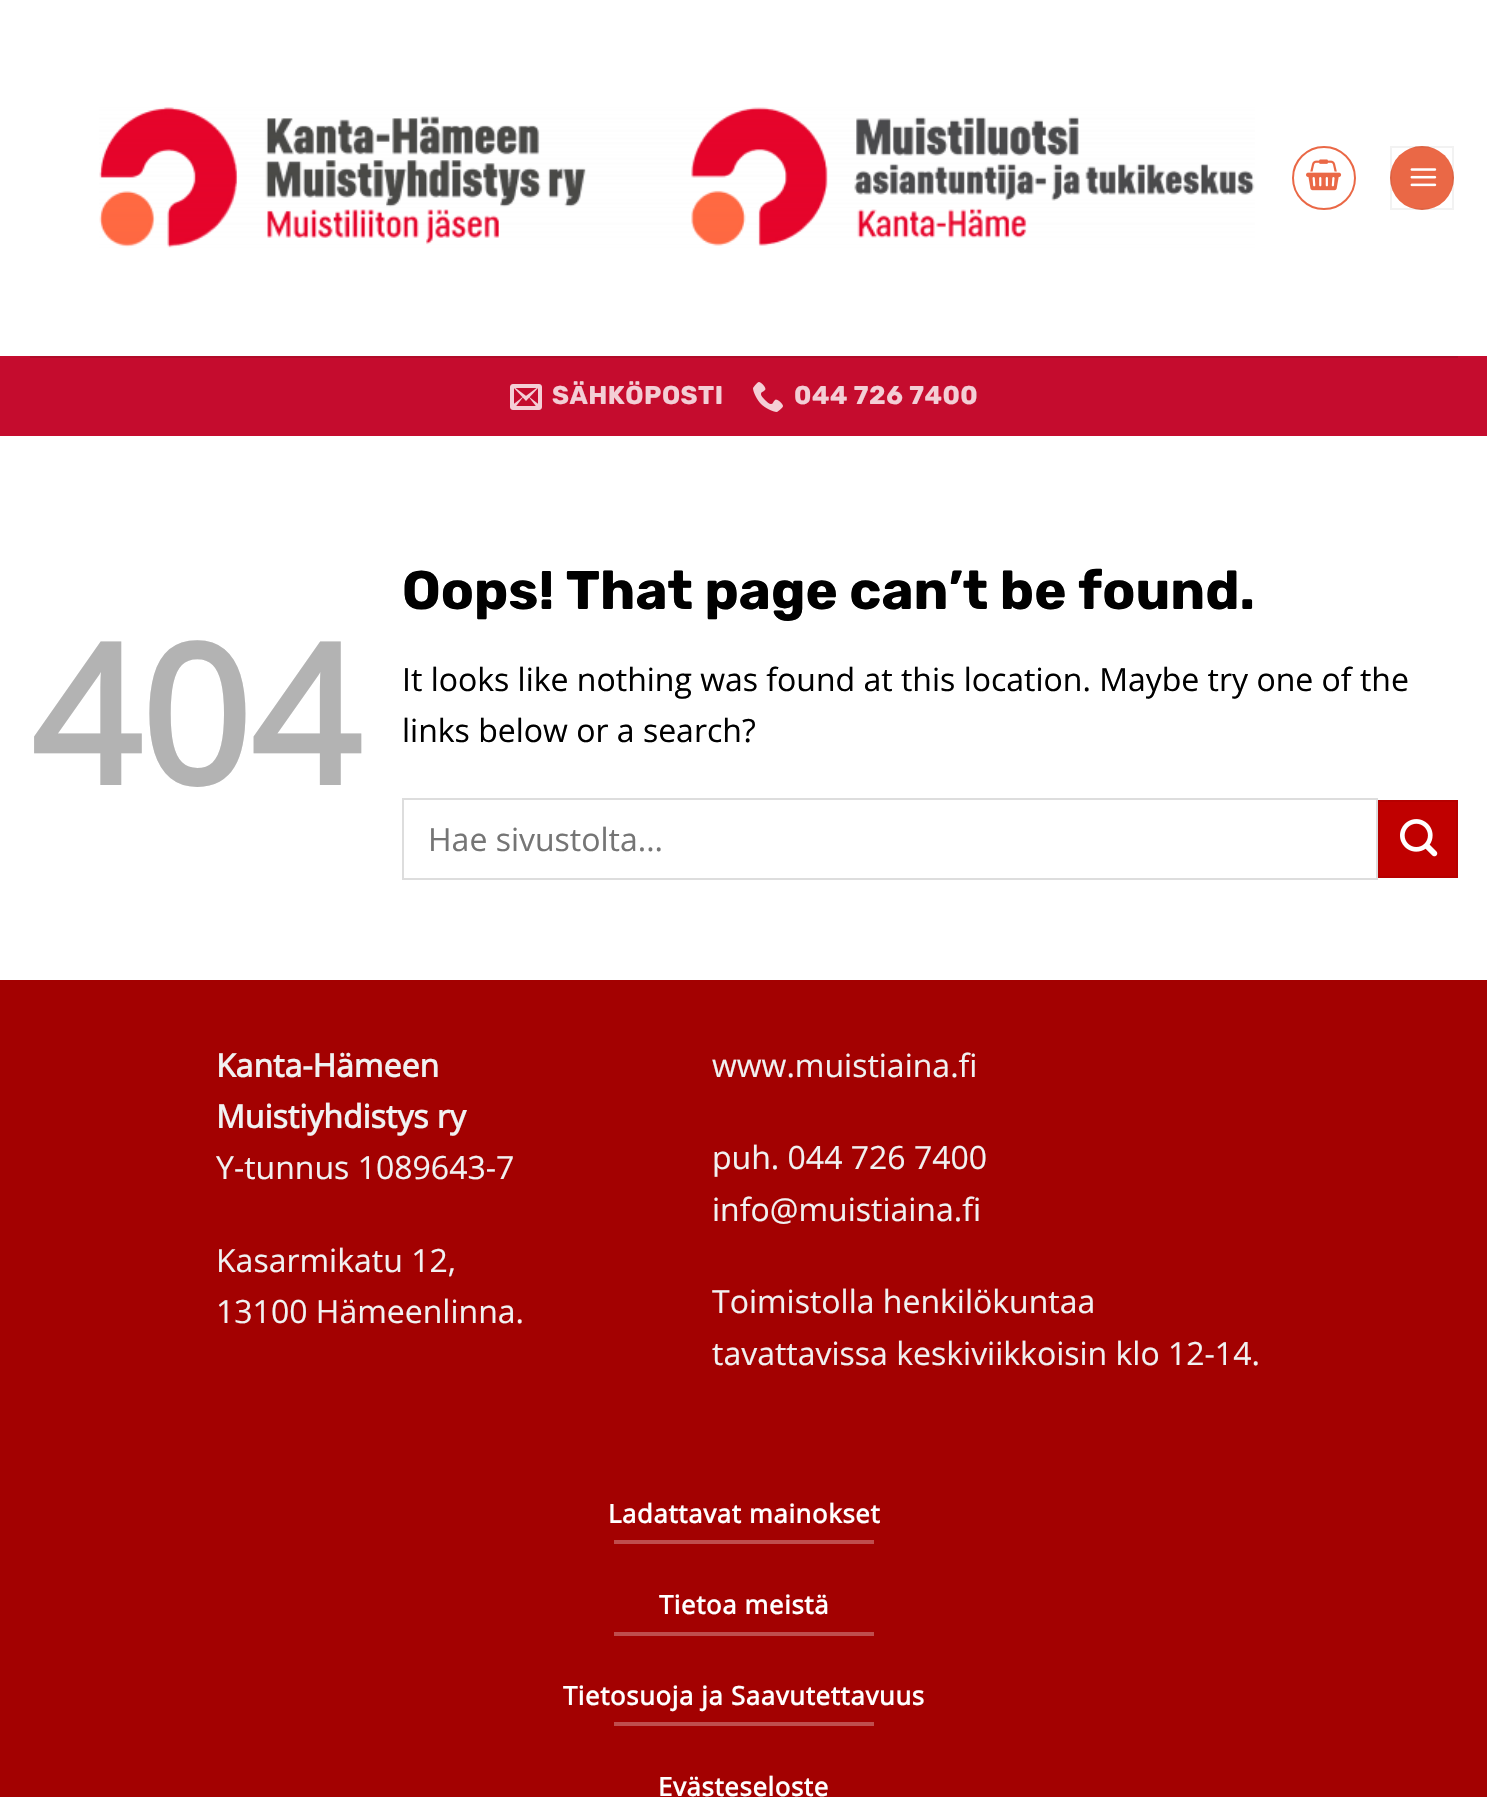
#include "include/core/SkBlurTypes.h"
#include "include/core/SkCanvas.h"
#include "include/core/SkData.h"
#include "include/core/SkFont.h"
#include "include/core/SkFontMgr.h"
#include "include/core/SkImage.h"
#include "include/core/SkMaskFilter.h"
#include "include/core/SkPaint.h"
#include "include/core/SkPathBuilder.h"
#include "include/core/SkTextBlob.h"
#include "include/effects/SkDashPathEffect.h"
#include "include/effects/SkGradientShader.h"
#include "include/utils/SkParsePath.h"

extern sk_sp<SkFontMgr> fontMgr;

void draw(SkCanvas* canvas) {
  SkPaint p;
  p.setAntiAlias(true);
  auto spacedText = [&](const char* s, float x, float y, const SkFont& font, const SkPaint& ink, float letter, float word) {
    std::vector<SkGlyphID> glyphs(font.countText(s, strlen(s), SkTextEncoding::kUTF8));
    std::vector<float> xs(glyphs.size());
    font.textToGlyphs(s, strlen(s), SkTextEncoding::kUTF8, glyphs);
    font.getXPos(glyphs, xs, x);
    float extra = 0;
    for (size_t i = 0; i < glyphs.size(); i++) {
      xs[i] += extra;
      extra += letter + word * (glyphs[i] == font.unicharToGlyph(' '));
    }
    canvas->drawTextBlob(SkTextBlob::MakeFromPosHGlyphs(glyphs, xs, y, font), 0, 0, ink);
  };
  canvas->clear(SK_ColorWHITE);
  canvas->drawImageRect(SkImages::DeferredFromEncodedData(SkData::MakeFromFileName("images/1.png")), SkRect::MakeLTRB(99, 107, 1255, 248), SkSamplingOptions());
  p.setStyle(SkPaint::kStroke_Style);
  p.setStrokeWidth(2);
  p.setColor(SkColorSetRGB(234, 104, 70));
  canvas->drawCircle(1324, 178, 31, p);
  canvas->drawImageRect(SkImages::DeferredFromEncodedData(SkData::MakeFromFileName("images/2.png")), SkRect::MakeLTRB(1306, 159, 1342, 191), SkSamplingOptions());
  p.setStyle(SkPaint::kFill_Style);
  canvas->drawCircle(1422, 178, 32, p);
  p.setStyle(SkPaint::kStroke_Style);
  p.setColor(SkColorSetARGB(13, 0, 0, 0));
  canvas->drawRect(SkRect::MakeLTRB(1391, 147, 1453, 209), p);
  canvas->drawImageRect(SkImages::DeferredFromEncodedData(SkData::MakeFromFileName("images/3.png")), SkRect::MakeLTRB(1410, 168, 1437, 187), SkSamplingOptions());
  p.setStyle(SkPaint::kFill_Style);
  p.setColor(SkColorSetRGB(197, 12, 46));
  canvas->drawRect(SkRect::MakeLTRB(0, 356, 1487, 436), p);
  p.setColor(SkColorSetRGB(177, 11, 41));
  canvas->drawRect(SkRect::MakeLTRB(30, 356, 1458, 358), p);
  canvas->drawImageRect(SkImages::DeferredFromEncodedData(SkData::MakeFromFileName("images/4.png")), SkRect::MakeLTRB(510, 384, 542, 410), SkSamplingOptions());
  canvas->drawImageRect(SkImages::DeferredFromEncodedData(SkData::MakeFromFileName("images/5.png")), SkRect::MakeLTRB(753, 382, 783, 412), SkSamplingOptions());
  p.setStyle(SkPaint::kStroke_Style);
  p.setColor(SkColorSetRGB(221, 221, 221));
  canvas->drawRect(SkRect::MakeLTRB(403, 799, 1377, 879), p);
  p.setStyle(SkPaint::kFill_Style);
  p.setColor(SkColorSetRGB(192, 0, 0));
  canvas->drawRect(SkRect::MakeLTRB(1379, 801, 1457, 877), p);
  p.setStyle(SkPaint::kStroke_Style);
  p.setColor(SkColorSetRGB(182, 0, 0));
  canvas->drawRect(SkRect::MakeLTRB(1379, 801, 1457, 877), p);
  canvas->drawImageRect(SkImages::DeferredFromEncodedData(SkData::MakeFromFileName("images/6.png")), SkRect::MakeLTRB(1400, 819, 1438, 857), SkSamplingOptions());
  p.setStyle(SkPaint::kFill_Style);
  p.setColor(SkColorSetRGB(163, 1, 1));
  canvas->drawRect(SkRect::MakeLTRB(0, 980, 1487, 1797), p);
  p.setColor(SkColorSetRGB(191, 77, 77));
  canvas->drawRect(SkRect::MakeLTRB(614, 1540, 874, 1544), p);
  canvas->drawRect(SkRect::MakeLTRB(614, 1632, 874, 1636), p);
  canvas->drawRect(SkRect::MakeLTRB(614, 1722, 874, 1726), p);
  SkFont font1(fontMgr->matchFamilyStyle("Rubik", SkFontStyle(300, SkFontStyle::kNormal_Width, SkFontStyle::kUpright_Slant)), 25.6f);
  font1.setSubpixel(true);
  p.setColor(SkColorSetRGB(243, 206, 213));
  spacedText("SÄHKÖPOSTI", 552, 404, font1, p, 0.5f, 0);
  spacedText("044 726 7400", 794, 404, font1, p, 0.5f, 0);
  SkFont font2(fontMgr->matchFamilyStyle("Open Sans", SkFontStyle::Bold()), 192);
  font2.setSubpixel(true);
  p.setColor(SkColorSetRGB(179, 179, 179));
  canvas->drawString("404", 30, 785, font2, p);
  SkFont font3(fontMgr->matchFamilyStyle("Rubik", SkFontStyle(300, SkFontStyle::kNormal_Width, SkFontStyle::kUpright_Slant)), 54.4f);
  font3.setSubpixel(true);
  p.setColor(SK_ColorBLACK);
  canvas->drawString("Oops! That page can’t be found.", 402, 609, font3, p);
  SkFont font4(fontMgr->matchFamilyStyle("Open Sans", SkFontStyle::Normal()), 32);
  font4.setSubpixel(true);
  canvas->drawString("It looks like nothing was found at this location. Maybe try one of the", 402, 691, font4, p);
  canvas->drawString("links below or a search?", 402, 742, font4, p);
  p.setColor(SkColorSetRGB(117, 117, 117));
  canvas->drawString("Hae sivustolta...", 428, 851, font4, p);
  SkFont font5(fontMgr->matchFamilyStyle("Open Sans", SkFontStyle::Bold()), 32);
  font5.setSubpixel(true);
  p.setColor(SkColorSetRGB(241, 241, 241));
  canvas->drawString("Kanta-Hämeen", 216, 1077, font5, p);
  canvas->drawString("Muistiyhdistys ry", 216, 1128, font5, p);
  canvas->drawString("Y-tunnus 1089643-7", 216, 1179, font4, p);
  canvas->drawString("Kasarmikatu 12,", 216, 1272, font4, p);
  canvas->drawString("13100 Hämeenlinna.", 216, 1323, font4, p);
  canvas->drawString("www.muistiaina.fi", 712, 1077, font4, p);
  canvas->drawString("puh. 044 726 7400", 712, 1169, font4, p);
  canvas->drawString("info@muistiaina.fi", 712, 1221, font4, p);
  canvas->drawString("Toimistolla henkilökuntaa", 712, 1313, font4, p);
  canvas->drawString("tavattavissa keskiviikkoisin klo 12-14.", 712, 1365, font4, p);
  SkFont font6(fontMgr->matchFamilyStyle("Open Sans", SkFontStyle::Bold()), 25.6f);
  font6.setSubpixel(true);
  p.setColor(SK_ColorWHITE);
  spacedText("Ladattavat mainokset", 608, 1523, font6, p, 0.75f, 0);
  spacedText("Tietoa meistä", 659, 1614, font6, p, 0.75f, 0);
  spacedText("Tietosuoja ja Saavutettavuus", 563, 1705, font6, p, 0.75f, 0);
  spacedText("Evästeseloste", 658, 1796, font6, p, 0.75f, 0);
}
